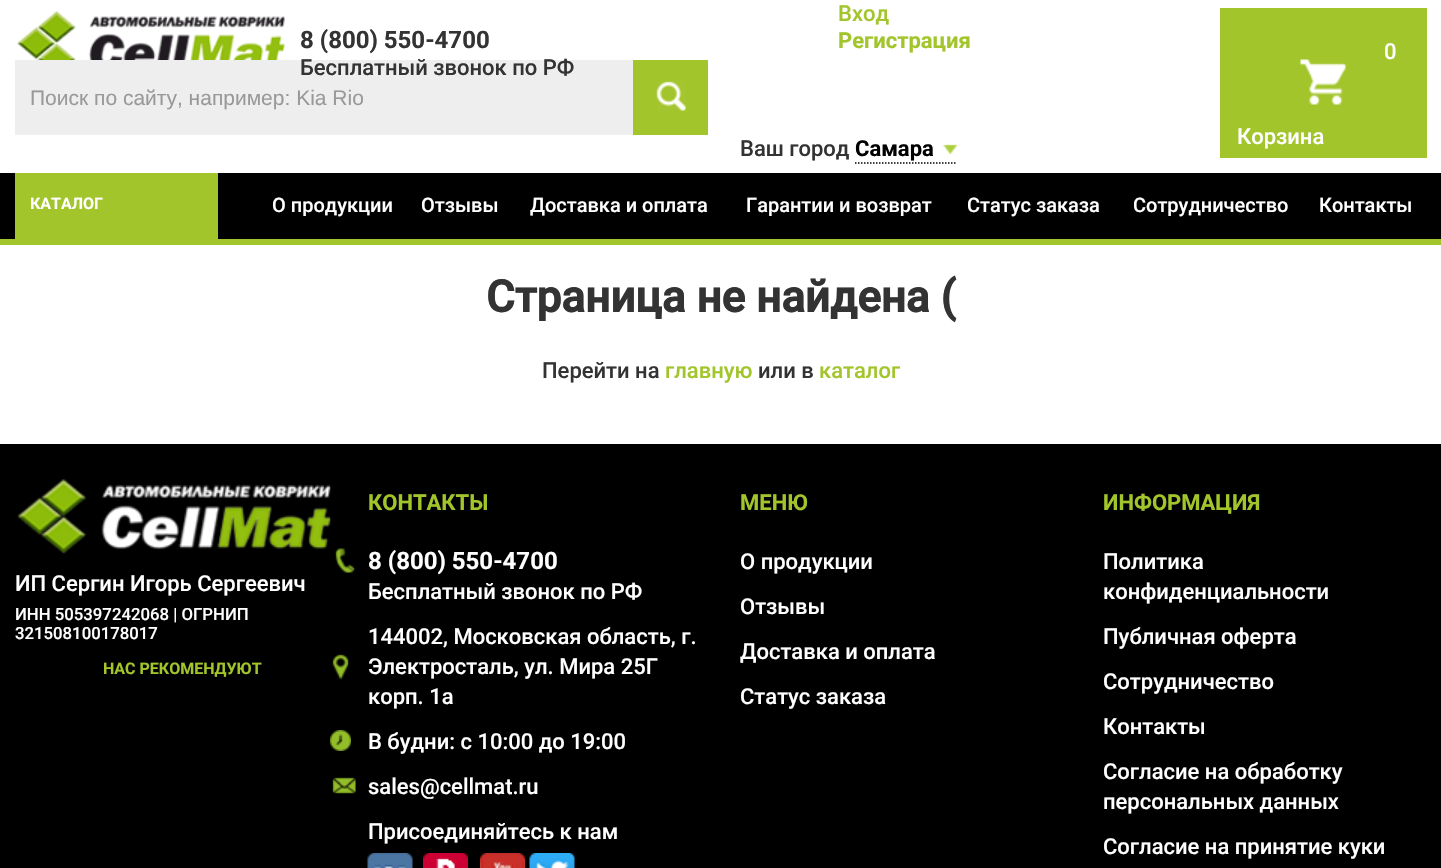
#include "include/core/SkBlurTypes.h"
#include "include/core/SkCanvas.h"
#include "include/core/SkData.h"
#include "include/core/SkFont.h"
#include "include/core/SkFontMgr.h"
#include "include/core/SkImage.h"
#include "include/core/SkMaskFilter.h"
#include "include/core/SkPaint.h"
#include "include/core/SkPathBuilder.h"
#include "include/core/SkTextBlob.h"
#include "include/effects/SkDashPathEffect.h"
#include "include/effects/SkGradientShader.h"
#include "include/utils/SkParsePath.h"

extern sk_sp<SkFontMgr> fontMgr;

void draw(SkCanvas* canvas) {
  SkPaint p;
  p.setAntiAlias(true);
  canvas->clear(SK_ColorWHITE);
  canvas->drawImageRect(SkImages::DeferredFromEncodedData(SkData::MakeFromFileName("images/1.png")), SkRect::MakeLTRB(17, 11, 285, 60), SkSamplingOptions());
  p.setColor(SkColorSetRGB(238, 238, 238));
  canvas->drawRect(SkRect::MakeLTRB(15, 60, 633, 135), p);
  p.setColor(SkColorSetRGB(163, 197, 44));
  canvas->drawRect(SkRect::MakeLTRB(633, 60, 708, 135), p);
  canvas->drawImageRect(SkImages::DeferredFromEncodedData(SkData::MakeFromFileName("images/2.png")), SkRect::MakeLTRB(656, 81, 686, 111), SkSamplingOptions());
  canvas->drawRect(SkRect::MakeLTRB(1220, 8, 1427, 158), p);
  canvas->drawImageRect(SkImages::DeferredFromEncodedData(SkData::MakeFromFileName("images/3.png")), SkRect::MakeLTRB(1300, 59, 1346, 105), SkSamplingOptions());
  canvas->drawImageRect(SkImages::DeferredFromEncodedData(SkData::MakeFromFileName("images/4.png")), SkRect::MakeLTRB(943, 144, 957, 154), SkSamplingOptions());
  p.setStyle(SkPaint::kStroke_Style);
  p.setStrokeWidth(1.5f);
  p.setColor(SK_ColorBLACK);
  p.setPathEffect(SkDashPathEffect::Make({{1.5f, 1.5f}}, 0));
  canvas->drawPath(SkPathBuilder().moveTo(855, 163).lineTo(957, 163).detach(), p);
  p.setPathEffect(nullptr);
  p.setStyle(SkPaint::kFill_Style);
  canvas->drawRect(SkRect::MakeLTRB(0, 173, 1441, 239), p);
  p.setColor(SkColorSetRGB(163, 197, 44));
  canvas->drawRect(SkRect::MakeLTRB(0, 239, 1441, 245), p);
  canvas->drawRect(SkRect::MakeLTRB(15, 173, 218, 239), p);
  p.setColor(SK_ColorBLACK);
  canvas->drawRect(SkRect::MakeLTRB(0, 444, 1441, 868), p);
  canvas->drawImageRect(SkImages::DeferredFromEncodedData(SkData::MakeFromFileName("images/5.png")), SkRect::MakeLTRB(17, 479, 331, 554), SkSamplingOptions());
  canvas->drawImageRect(SkImages::DeferredFromEncodedData(SkData::MakeFromFileName("images/6.png")), SkRect::MakeLTRB(335, 548, 355, 573), SkSamplingOptions());
  canvas->drawImageRect(SkImages::DeferredFromEncodedData(SkData::MakeFromFileName("images/7.png")), SkRect::MakeLTRB(332, 654, 349, 680), SkSamplingOptions());
  canvas->drawImageRect(SkImages::DeferredFromEncodedData(SkData::MakeFromFileName("images/8.png")), SkRect::MakeLTRB(330, 730, 351, 751), SkSamplingOptions());
  canvas->drawImageRect(SkImages::DeferredFromEncodedData(SkData::MakeFromFileName("images/9.png")), SkRect::MakeLTRB(332, 777, 356, 794), SkSamplingOptions());
  canvas->drawImageRect(SkImages::DeferredFromEncodedData(SkData::MakeFromFileName("images/10.png")), SkRect::MakeLTRB(367, 853, 413, 868), SkSamplingOptions());
  canvas->drawImageRect(SkImages::DeferredFromEncodedData(SkData::MakeFromFileName("images/11.png")), SkRect::MakeLTRB(423, 853, 468, 868), SkSamplingOptions());
  canvas->drawImageRect(SkImages::DeferredFromEncodedData(SkData::MakeFromFileName("images/12.png")), SkRect::MakeLTRB(480, 853, 525, 868), SkSamplingOptions());
  canvas->drawImageRect(SkImages::DeferredFromEncodedData(SkData::MakeFromFileName("images/13.png")), SkRect::MakeLTRB(529, 853, 575, 868), SkSamplingOptions());
  SkFont font1(fontMgr->matchFamilyStyle("Liberation Sans", SkFontStyle::Normal()), 21);
  font1.setSubpixel(true);
  p.setColor(SkColorSetRGB(153, 153, 153));
  canvas->drawString("Поиск по сайту, например: Kia Rio", 30, 105, font1, p);
  SkFont font2(fontMgr->matchFamilyStyle("Roboto", SkFontStyle::Bold()), 24);
  font2.setSubpixel(true);
  p.setColor(SkColorSetRGB(51, 51, 51));
  canvas->drawString("8 (800) 550-4700", 300, 48, font2, p);
  SkFont font3(fontMgr->matchFamilyStyle("Roboto", SkFontStyle(500, SkFontStyle::kNormal_Width, SkFontStyle::kUpright_Slant)), 22);
  font3.setSubpixel(true);
  canvas->drawString("Бесплатный звонок по РФ", 300, 75, font3, p);
  p.setColor(SkColorSetRGB(163, 197, 44));
  canvas->drawString("Вход", 838, 21, font3, p);
  SkFont font4(fontMgr->matchFamilyStyle("Roboto", SkFontStyle::Bold()), 22);
  font4.setSubpixel(true);
  canvas->drawString("Регистрация", 838, 48, font4, p);
  p.setColor(SK_ColorWHITE);
  canvas->drawString("0", 1384, 59, font3, p);
  canvas->drawString("Корзина", 1237, 144, font3, p);
  p.setColor(SkColorSetRGB(51, 51, 51));
  canvas->drawString("Ваш город", 740, 156, font3, p);
  p.setColor(SK_ColorBLACK);
  canvas->drawString("Самара", 855, 156, font4, p);
  SkFont font5(fontMgr->matchFamilyStyle("Roboto", SkFontStyle::Bold()), 16);
  font5.setSubpixel(true);
  p.setColor(SK_ColorWHITE);
  canvas->drawString("КАТАЛОГ", 30, 209, font5, p);
  SkFont font6(fontMgr->matchFamilyStyle("Roboto", SkFontStyle(500, SkFontStyle::kNormal_Width, SkFontStyle::kUpright_Slant)), 20);
  font6.setSubpixel(true);
  canvas->drawString("О продукции", 272, 212, font6, p);
  canvas->drawString("Отзывы", 421, 212, font6, p);
  canvas->drawString("Доставка и оплата", 530, 212, font6, p);
  canvas->drawString("Гарантии и возврат", 746, 212, font6, p);
  canvas->drawString("Статус заказа", 967, 212, font6, p);
  canvas->drawString("Сотрудничество", 1133, 212, font6, p);
  canvas->drawString("Контакты", 1319, 212, font6, p);
  SkFont font7(fontMgr->matchFamilyStyle("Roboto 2", SkFontStyle::Bold()), 44);
  font7.setSubpixel(true);
  p.setColor(SkColorSetRGB(51, 51, 51));
  canvas->drawString("Страница не найдена (", 486, 312, font7, p);
  canvas->drawString("Перейти на", 542, 378, font3, p);
  p.setColor(SkColorSetRGB(163, 197, 44));
  canvas->drawString("главную", 665, 378, font3, p);
  p.setColor(SkColorSetRGB(51, 51, 51));
  canvas->drawString("или в", 758, 378, font3, p);
  p.setColor(SkColorSetRGB(163, 197, 44));
  canvas->drawString("каталог", 819, 378, font3, p);
  p.setColor(SK_ColorWHITE);
  canvas->drawString("ИП Сергин Игорь Сергеевич", 15, 591, font3, p);
  SkFont font8(fontMgr->matchFamilyStyle("Roboto", SkFontStyle(500, SkFontStyle::kNormal_Width, SkFontStyle::kUpright_Slant)), 16.75f);
  font8.setSubpixel(true);
  canvas->drawString("ИНН 505397242068 | ОГРНИП", 15, 620, font8, p);
  canvas->drawString("321508100178017", 15, 639, font8, p);
  p.setColor(SkColorSetRGB(163, 197, 44));
  canvas->drawString("НАС РЕКОМЕНДУЮТ", 103, 674, font5, p);
  canvas->drawString("КОНТАКТЫ", 368, 510, font4, p);
  p.setColor(SK_ColorWHITE);
  canvas->drawString("8 (800) 550-4700", 368, 569, font2, p);
  canvas->drawString("Бесплатный звонок по РФ", 368, 599, font3, p);
  canvas->drawString("144002, Московская область, г.", 368, 644, font3, p);
  canvas->drawString("Электросталь, ул. Мира 25Г", 368, 674, font3, p);
  canvas->drawString("корп. 1а", 368, 704, font3, p);
  canvas->drawString("В будни: с 10:00 до 19:00", 368, 749, font3, p);
  canvas->drawString("sales@cellmat.ru", 368, 794, font3, p);
  canvas->drawString("Присоединяйтесь к нам", 368, 839, font3, p);
  p.setColor(SkColorSetRGB(163, 197, 44));
  canvas->drawString("МЕНЮ", 740, 510, font4, p);
  p.setColor(SK_ColorWHITE);
  canvas->drawString("О продукции", 740, 569, font3, p);
  canvas->drawString("Отзывы", 740, 614, font3, p);
  canvas->drawString("Доставка и оплата", 740, 659, font3, p);
  canvas->drawString("Статус заказа", 740, 704, font3, p);
  p.setColor(SkColorSetRGB(163, 197, 44));
  canvas->drawString("ИНФОРМАЦИЯ", 1103, 510, font4, p);
  p.setColor(SK_ColorWHITE);
  canvas->drawString("Политика", 1103, 569, font3, p);
  canvas->drawString("конфиденциальности", 1103, 599, font3, p);
  canvas->drawString("Публичная оферта", 1103, 644, font3, p);
  canvas->drawString("Сотрудничество", 1103, 689, font3, p);
  canvas->drawString("Контакты", 1103, 734, font3, p);
  canvas->drawString("Согласие на обработку", 1103, 779, font3, p);
  canvas->drawString("персональных данных", 1103, 809, font3, p);
  canvas->drawString("Соглаcие на принятие куки", 1103, 854, font3, p);
}
